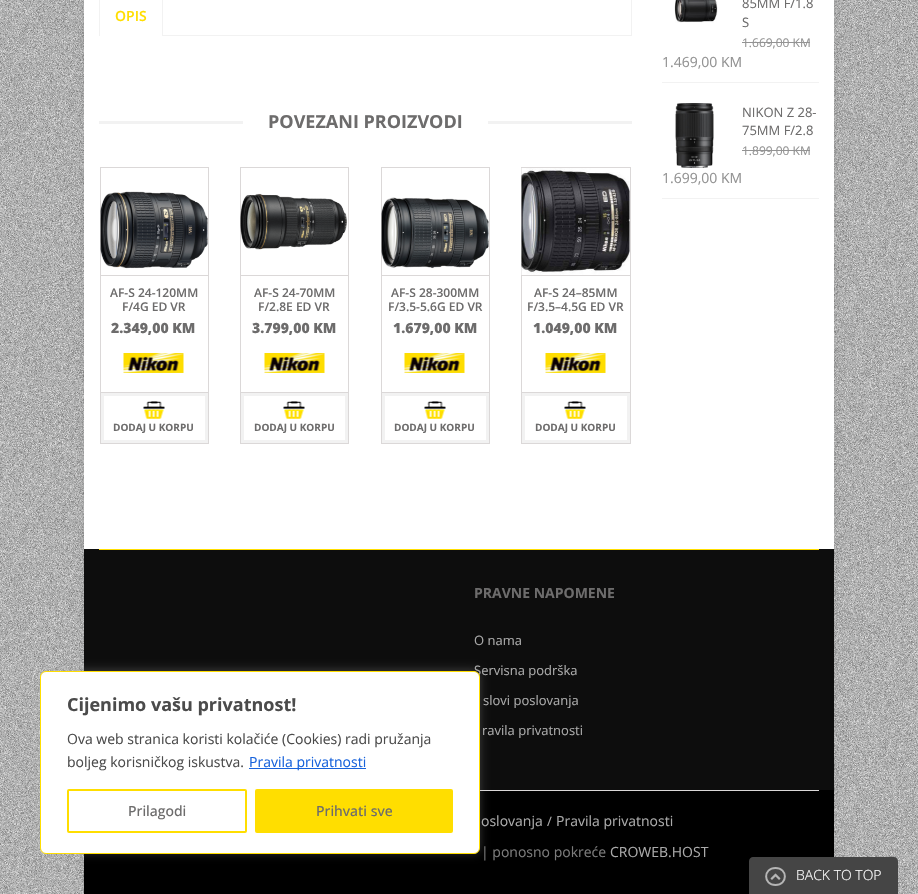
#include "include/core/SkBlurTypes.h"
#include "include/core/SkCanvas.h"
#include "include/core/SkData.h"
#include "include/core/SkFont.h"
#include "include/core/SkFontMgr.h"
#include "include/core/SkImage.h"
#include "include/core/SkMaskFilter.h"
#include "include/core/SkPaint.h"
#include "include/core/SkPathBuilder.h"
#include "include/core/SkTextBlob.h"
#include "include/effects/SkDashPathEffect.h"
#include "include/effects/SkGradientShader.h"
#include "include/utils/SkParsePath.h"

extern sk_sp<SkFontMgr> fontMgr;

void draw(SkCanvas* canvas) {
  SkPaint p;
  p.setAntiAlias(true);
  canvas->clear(SK_ColorWHITE);
  canvas->drawImageRect(SkImages::DeferredFromEncodedData(SkData::MakeFromFileName("images/1.png")), SkRect::MakeLTRB(0, 0, 918, 894), SkSamplingOptions());
  p.setColor(SkColorSetARGB(26, 0, 0, 0));
  p.setMaskFilter(SkMaskFilter::MakeBlur(kNormal_SkBlurStyle, 4.5f));
  canvas->drawRect(SkRect::MakeLTRB(84, -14, 834, 891), p);
  p.setMaskFilter(nullptr);
  p.setColor(SK_ColorWHITE);
  canvas->drawRect(SkRect::MakeLTRB(84, 0, 834, 549), p);
  p.setColor(SkColorSetRGB(242, 242, 242));
  canvas->drawRect(SkRect::MakeLTRB(631, 0, 632, 36), p);
  canvas->drawRect(SkRect::MakeLTRB(163, 35, 632, 36), p);
  canvas->drawRect(SkRect::MakeLTRB(162, 0, 163, 36), p);
  canvas->drawRect(SkRect::MakeLTRB(99, 0, 100, 36), p);
  canvas->drawRect(SkRect::MakeLTRB(99, 121, 243, 124), p);
  canvas->drawRect(SkRect::MakeLTRB(488, 121, 632, 124), p);
  p.setStyle(SkPaint::kStroke_Style);
  p.setStrokeWidth(1);
  p.setColor(SkColorSetRGB(219, 216, 216));
  canvas->drawRect(SkRect::MakeLTRB(100.5f, 167.5f, 208.5f, 443.5f), p);
  canvas->drawImageRect(SkImages::DeferredFromEncodedData(SkData::MakeFromFileName("images/2.png")), SkRect::MakeLTRB(100, 191, 208, 269), SkSamplingOptions());
  p.setStyle(SkPaint::kFill_Style);
  canvas->drawRect(SkRect::MakeLTRB(101, 275, 208, 276), p);
  canvas->drawImageRect(SkImages::DeferredFromEncodedData(SkData::MakeFromFileName("images/3.png")), SkRect::MakeLTRB(123, 353, 184, 373), SkSamplingOptions());
  canvas->drawRect(SkRect::MakeLTRB(101, 392, 208, 393), p);
  p.setStyle(SkPaint::kStroke_Style);
  p.setStrokeWidth(3);
  p.setColor(SkColorSetRGB(242, 242, 242));
  canvas->drawRect(SkRect::MakeLTRB(102.5f, 394.5f, 206.5f, 441.5f), p);
  canvas->drawImageRect(SkImages::DeferredFromEncodedData(SkData::MakeFromFileName("images/4.png")), SkRect::MakeLTRB(143, 401, 165, 419), SkSamplingOptions());
  p.setStrokeWidth(1);
  p.setColor(SkColorSetRGB(219, 216, 216));
  canvas->drawRect(SkRect::MakeLTRB(240.5f, 167.5f, 348.5f, 443.5f), p);
  canvas->drawImageRect(SkImages::DeferredFromEncodedData(SkData::MakeFromFileName("images/5.png")), SkRect::MakeLTRB(240, 193, 347, 250), SkSamplingOptions());
  p.setStyle(SkPaint::kFill_Style);
  canvas->drawRect(SkRect::MakeLTRB(241, 275, 348, 276), p);
  canvas->drawImageRect(SkImages::DeferredFromEncodedData(SkData::MakeFromFileName("images/6.png")), SkRect::MakeLTRB(264, 353, 325, 373), SkSamplingOptions());
  canvas->drawRect(SkRect::MakeLTRB(241, 392, 348, 393), p);
  p.setStyle(SkPaint::kStroke_Style);
  p.setStrokeWidth(3);
  p.setColor(SkColorSetRGB(242, 242, 242));
  canvas->drawRect(SkRect::MakeLTRB(242.5f, 394.5f, 346.5f, 441.5f), p);
  canvas->drawImageRect(SkImages::DeferredFromEncodedData(SkData::MakeFromFileName("images/4.png")), SkRect::MakeLTRB(283, 401, 305, 419), SkSamplingOptions());
  p.setStrokeWidth(1);
  p.setColor(SkColorSetRGB(219, 216, 216));
  canvas->drawRect(SkRect::MakeLTRB(381.5f, 167.5f, 489.5f, 443.5f), p);
  canvas->drawImageRect(SkImages::DeferredFromEncodedData(SkData::MakeFromFileName("images/7.png")), SkRect::MakeLTRB(381, 197, 489, 269), SkSamplingOptions());
  p.setStyle(SkPaint::kFill_Style);
  canvas->drawRect(SkRect::MakeLTRB(382, 275, 489, 276), p);
  canvas->drawImageRect(SkImages::DeferredFromEncodedData(SkData::MakeFromFileName("images/3.png")), SkRect::MakeLTRB(404, 353, 465, 373), SkSamplingOptions());
  canvas->drawRect(SkRect::MakeLTRB(382, 392, 489, 393), p);
  p.setStyle(SkPaint::kStroke_Style);
  p.setStrokeWidth(3);
  p.setColor(SkColorSetRGB(242, 242, 242));
  canvas->drawRect(SkRect::MakeLTRB(383.5f, 394.5f, 487.5f, 441.5f), p);
  canvas->drawImageRect(SkImages::DeferredFromEncodedData(SkData::MakeFromFileName("images/4.png")), SkRect::MakeLTRB(424, 401, 446, 419), SkSamplingOptions());
  p.setStrokeWidth(1);
  p.setColor(SkColorSetRGB(219, 216, 216));
  canvas->drawRect(SkRect::MakeLTRB(521.5f, 167.5f, 630.5f, 443.5f), p);
  canvas->drawImageRect(SkImages::DeferredFromEncodedData(SkData::MakeFromFileName("images/8.png")), SkRect::MakeLTRB(521, 168, 630, 275), SkSamplingOptions());
  p.setStyle(SkPaint::kFill_Style);
  canvas->drawRect(SkRect::MakeLTRB(522, 275, 630, 276), p);
  canvas->drawImageRect(SkImages::DeferredFromEncodedData(SkData::MakeFromFileName("images/6.png")), SkRect::MakeLTRB(545, 353, 606, 373), SkSamplingOptions());
  canvas->drawRect(SkRect::MakeLTRB(522, 392, 630, 393), p);
  p.setStyle(SkPaint::kStroke_Style);
  p.setStrokeWidth(3);
  p.setColor(SkColorSetRGB(242, 242, 242));
  canvas->drawRect(SkRect::MakeLTRB(523.5f, 394.5f, 628.5f, 441.5f), p);
  canvas->drawImageRect(SkImages::DeferredFromEncodedData(SkData::MakeFromFileName("images/4.png")), SkRect::MakeLTRB(564, 401, 586, 419), SkSamplingOptions());
  p.setStyle(SkPaint::kFill_Style);
  canvas->drawRect(SkRect::MakeLTRB(662, 82, 819, 83), p);
  canvas->drawImageRect(SkImages::DeferredFromEncodedData(SkData::MakeFromFileName("images/9.png")), SkRect::MakeLTRB(674, 0, 718, 23), SkSamplingOptions());
  p.setColor(SkColorSetRGB(147, 147, 147));
  canvas->drawRect(SkRect::MakeLTRB(742, 42, 810, 43), p);
  p.setColor(SkColorSetRGB(242, 242, 242));
  canvas->drawRect(SkRect::MakeLTRB(662, 198, 819, 199), p);
  canvas->drawImageRect(SkImages::DeferredFromEncodedData(SkData::MakeFromFileName("images/10.png")), SkRect::MakeLTRB(675, 103, 714, 168), SkSamplingOptions());
  p.setColor(SkColorSetRGB(147, 147, 147));
  canvas->drawRect(SkRect::MakeLTRB(742, 150, 810, 151), p);
  p.setColor(SkColorSetRGB(13, 13, 13));
  canvas->drawRect(SkRect::MakeLTRB(84, 549, 834, 790), p);
  p.setColor(SkColorSetRGB(255, 222, 0));
  canvas->drawRect(SkRect::MakeLTRB(99, 549, 819, 550), p);
  p.setColor(SK_ColorBLACK);
  canvas->drawRect(SkRect::MakeLTRB(84, 790, 834, 894), p);
  p.setColor(SkColorSetRGB(219, 216, 216));
  canvas->drawRect(SkRect::MakeLTRB(480, 790, 819, 791), p);
  p.setColor(SkColorSetARGB(77, 172, 171, 171));
  p.setMaskFilter(SkMaskFilter::MakeBlur(kNormal_SkBlurStyle, 5));
  canvas->drawRoundRect(SkRect::MakeLTRB(40, 670, 480, 853), 6, 6, p);
  p.setMaskFilter(nullptr);
  p.setColor(SkColorSetRGB(69, 69, 69));
  canvas->drawPath(SkPathBuilder().moveTo(753, 857).lineTo(894, 857).cubicTo(896, 857, 898, 859, 898, 861).lineTo(898, 894).lineTo(749, 894).lineTo(749, 861).cubicTo(749, 859, 751, 857, 753, 857).close().detach(), p);
  p.setStyle(SkPaint::kStroke_Style);
  p.setStrokeWidth(2);
  p.setColor(SkColorSetRGB(181, 181, 181));
  canvas->drawPath(SkPathBuilder().moveTo(775.5f, 868).cubicTo(788, 868, 788, 885, 775.5f, 885).cubicTo(763, 885, 763, 868, 775.5f, 868).close().detach(), p);
  canvas->drawImageRect(SkImages::DeferredFromEncodedData(SkData::MakeFromFileName("images/11.png")), SkRect::MakeLTRB(770, 873, 781, 880), SkSamplingOptions());
  SkFont font1(fontMgr->matchFamilyStyle("Open Sans", SkFontStyle(600, SkFontStyle::kNormal_Width, SkFontStyle::kUpright_Slant)), 14);
  font1.setSubpixel(true);
  p.setStyle(SkPaint::kFill_Style);
  p.setColor(SkColorSetRGB(255, 222, 0));
  canvas->drawString("OPIS", 115, 21, font1, p);
  SkFont font2(fontMgr->matchFamilyStyle("Open Sans", SkFontStyle::Bold()), 18);
  font2.setSubpixel(true);
  p.setColor(SkColorSetRGB(109, 108, 108));
  canvas->drawString("POVEZANI PROIZVODI", 268, 128, font2, p);
  SkFont font3(fontMgr->matchFamilyStyle("Open Sans", SkFontStyle(600, SkFontStyle::kNormal_Width, SkFontStyle::kUpright_Slant)), 12);
  font3.setSubpixel(true);
  canvas->drawString("AF-S 24-120MM", 110, 297, font3, p);
  canvas->drawString("F/4G ED VR", 122, 311, font3, p);
  SkFont font4(fontMgr->matchFamilyStyle("Open Sans", SkFontStyle(800, SkFontStyle::kNormal_Width, SkFontStyle::kUpright_Slant)), 14);
  font4.setSubpixel(true);
  canvas->drawString("2.349,00 KM", 111, 333, font4, p);
  SkFont font5(fontMgr->matchFamilyStyle("Open Sans", SkFontStyle::Bold()), 10);
  font5.setSubpixel(true);
  canvas->drawString("DODAJ U KORPU", 113, 431, font5, p);
  canvas->drawString("AF-S 24-70MM", 254, 297, font3, p);
  canvas->drawString("F/2.8E ED VR", 258, 311, font3, p);
  canvas->drawString("3.799,00 KM", 252, 333, font4, p);
  canvas->drawString("DODAJ U KORPU", 254, 431, font5, p);
  canvas->drawString("AF-S 28-300MM", 391, 297, font3, p);
  canvas->drawString("F/3.5-5.6G ED VR", 388, 311, font3, p);
  canvas->drawString("1.679,00 KM", 393, 333, font4, p);
  canvas->drawString("DODAJ U KORPU", 394, 431, font5, p);
  canvas->drawString("AF-S 24–85MM", 534, 297, font3, p);
  canvas->drawString("F/3.5–4.5G ED VR", 527, 311, font3, p);
  canvas->drawString("1.049,00 KM", 533, 333, font4, p);
  canvas->drawString("DODAJ U KORPU", 535, 431, font5, p);
  SkFont font6(fontMgr->matchFamilyStyle("Open Sans", SkFontStyle::Normal()), 13);
  font6.setSubpixel(true);
  canvas->drawString("85MM F/1.8", 742, 8, font6, p);
  canvas->drawString("S", 742, 27, font6, p);
  SkFont font7(fontMgr->matchFamilyStyle("Open Sans", SkFontStyle::Normal()), 12);
  font7.setSubpixel(true);
  p.setColor(SkColorSetRGB(147, 147, 147));
  canvas->drawString("1.669,00 KM", 742, 47, font7, p);
  SkFont font8(fontMgr->matchFamilyStyle("Open Sans", SkFontStyle::Normal()), 14);
  font8.setSubpixel(true);
  canvas->drawString("1.469,00 KM", 662, 67, font8, p);
  p.setColor(SkColorSetRGB(109, 108, 108));
  canvas->drawString("NIKON Z 28-", 742, 117, font6, p);
  canvas->drawString("75MM F/2.8", 742, 135, font6, p);
  p.setColor(SkColorSetRGB(147, 147, 147));
  canvas->drawString("1.899,00 KM", 742, 155, font7, p);
  canvas->drawString("1.699,00 KM", 662, 183, font8, p);
  SkFont font9(fontMgr->matchFamilyStyle("Open Sans", SkFontStyle::Bold()), 14);
  font9.setSubpixel(true);
  p.setColor(SkColorSetRGB(109, 108, 108));
  canvas->drawString("PRAVNE NAPOMENE", 474, 598, font9, p);
  p.setColor(SkColorSetRGB(170, 170, 170));
  canvas->drawString("O nama", 474, 645, font6, p);
  canvas->drawString("Servisna podrška", 474, 675, font6, p);
  canvas->drawString("slovi poslovanja", 483, 705, font6, p);
  canvas->drawString("ravila privatnosti", 482, 735, font6, p);
  canvas->drawString("oslovanja", 481, 826, font8, p);
  canvas->drawString("/", 547, 826, font6, p);
  canvas->drawString("Pravila privatnosti", 556, 826, font8, p);
  p.setColor(SkColorSetRGB(123, 123, 123));
  canvas->drawString("| ponosno pokreće", 481, 857, font8, p);
  p.setColor(SkColorSetRGB(170, 170, 170));
  canvas->drawString("CROWEB.HOST", 610, 857, font8, p);
  p.setColor(SK_ColorWHITE);
  canvas->drawRoundRect(SkRect::MakeLTRB(40.5f, 671.5f, 479.5f, 853.5f), 5.5f, 5.5f, p);
  p.setStyle(SkPaint::kStroke_Style);
  p.setStrokeWidth(1);
  p.setColor(SkColorSetRGB(255, 222, 0));
  canvas->drawRoundRect(SkRect::MakeLTRB(40.5f, 671.5f, 479.5f, 853.5f), 5.5f, 5.5f, p);
  p.setStyle(SkPaint::kFill_Style);
  p.setColor(SkColorSetRGB(75, 75, 75));
  canvas->drawString("Cijenimo vašu privatnost!", 67, 711, font2, p);
  canvas->drawString("Ova web stranica koristi kolačiće (Cookies) radi pružanja", 67, 744, font8, p);
  canvas->drawString("boljeg korisničkog iskustva.", 67, 767, font8, p);
  p.setColor(SkColorSetRGB(24, 99, 220));
  canvas->drawRect(SkRect::MakeLTRB(249, 768, 366, 769), p);
  canvas->drawString("Pravila privatnosti", 249, 767, font8, p);
  p.setStyle(SkPaint::kStroke_Style);
  p.setStrokeWidth(2);
  p.setColor(SkColorSetRGB(255, 222, 0));
  canvas->drawRoundRect(SkRect::MakeLTRB(68, 790, 246, 832), 1, 1, p);
  SkFont font10(fontMgr->matchFamilyStyle("Open Sans", SkFontStyle(500, SkFontStyle::kNormal_Width, SkFontStyle::kUpright_Slant)), 14);
  font10.setSubpixel(true);
  p.setStyle(SkPaint::kFill_Style);
  p.setColor(SkColorSetRGB(109, 108, 108));
  canvas->drawString("Prilagodi", 128, 816, font10, p);
  p.setColor(SkColorSetRGB(255, 222, 0));
  canvas->drawRoundRect(SkRect::MakeLTRB(256, 790, 452, 832), 1, 1, p);
  p.setStyle(SkPaint::kStroke_Style);
  canvas->drawRoundRect(SkRect::MakeLTRB(256, 790, 452, 832), 1, 1, p);
  p.setStyle(SkPaint::kFill_Style);
  p.setColor(SkColorSetRGB(109, 108, 108));
  canvas->drawString("Prihvati sve", 316, 816, font10, p);
  SkFont font11(fontMgr->matchFamilyStyle("Open Sans", SkFontStyle(300, SkFontStyle::kNormal_Width, SkFontStyle::kUpright_Slant)), 14);
  font11.setSubpixel(true);
  p.setColor(SK_ColorWHITE);
  canvas->drawString("BACK TO TOP", 796, 880, font11, p);
}
